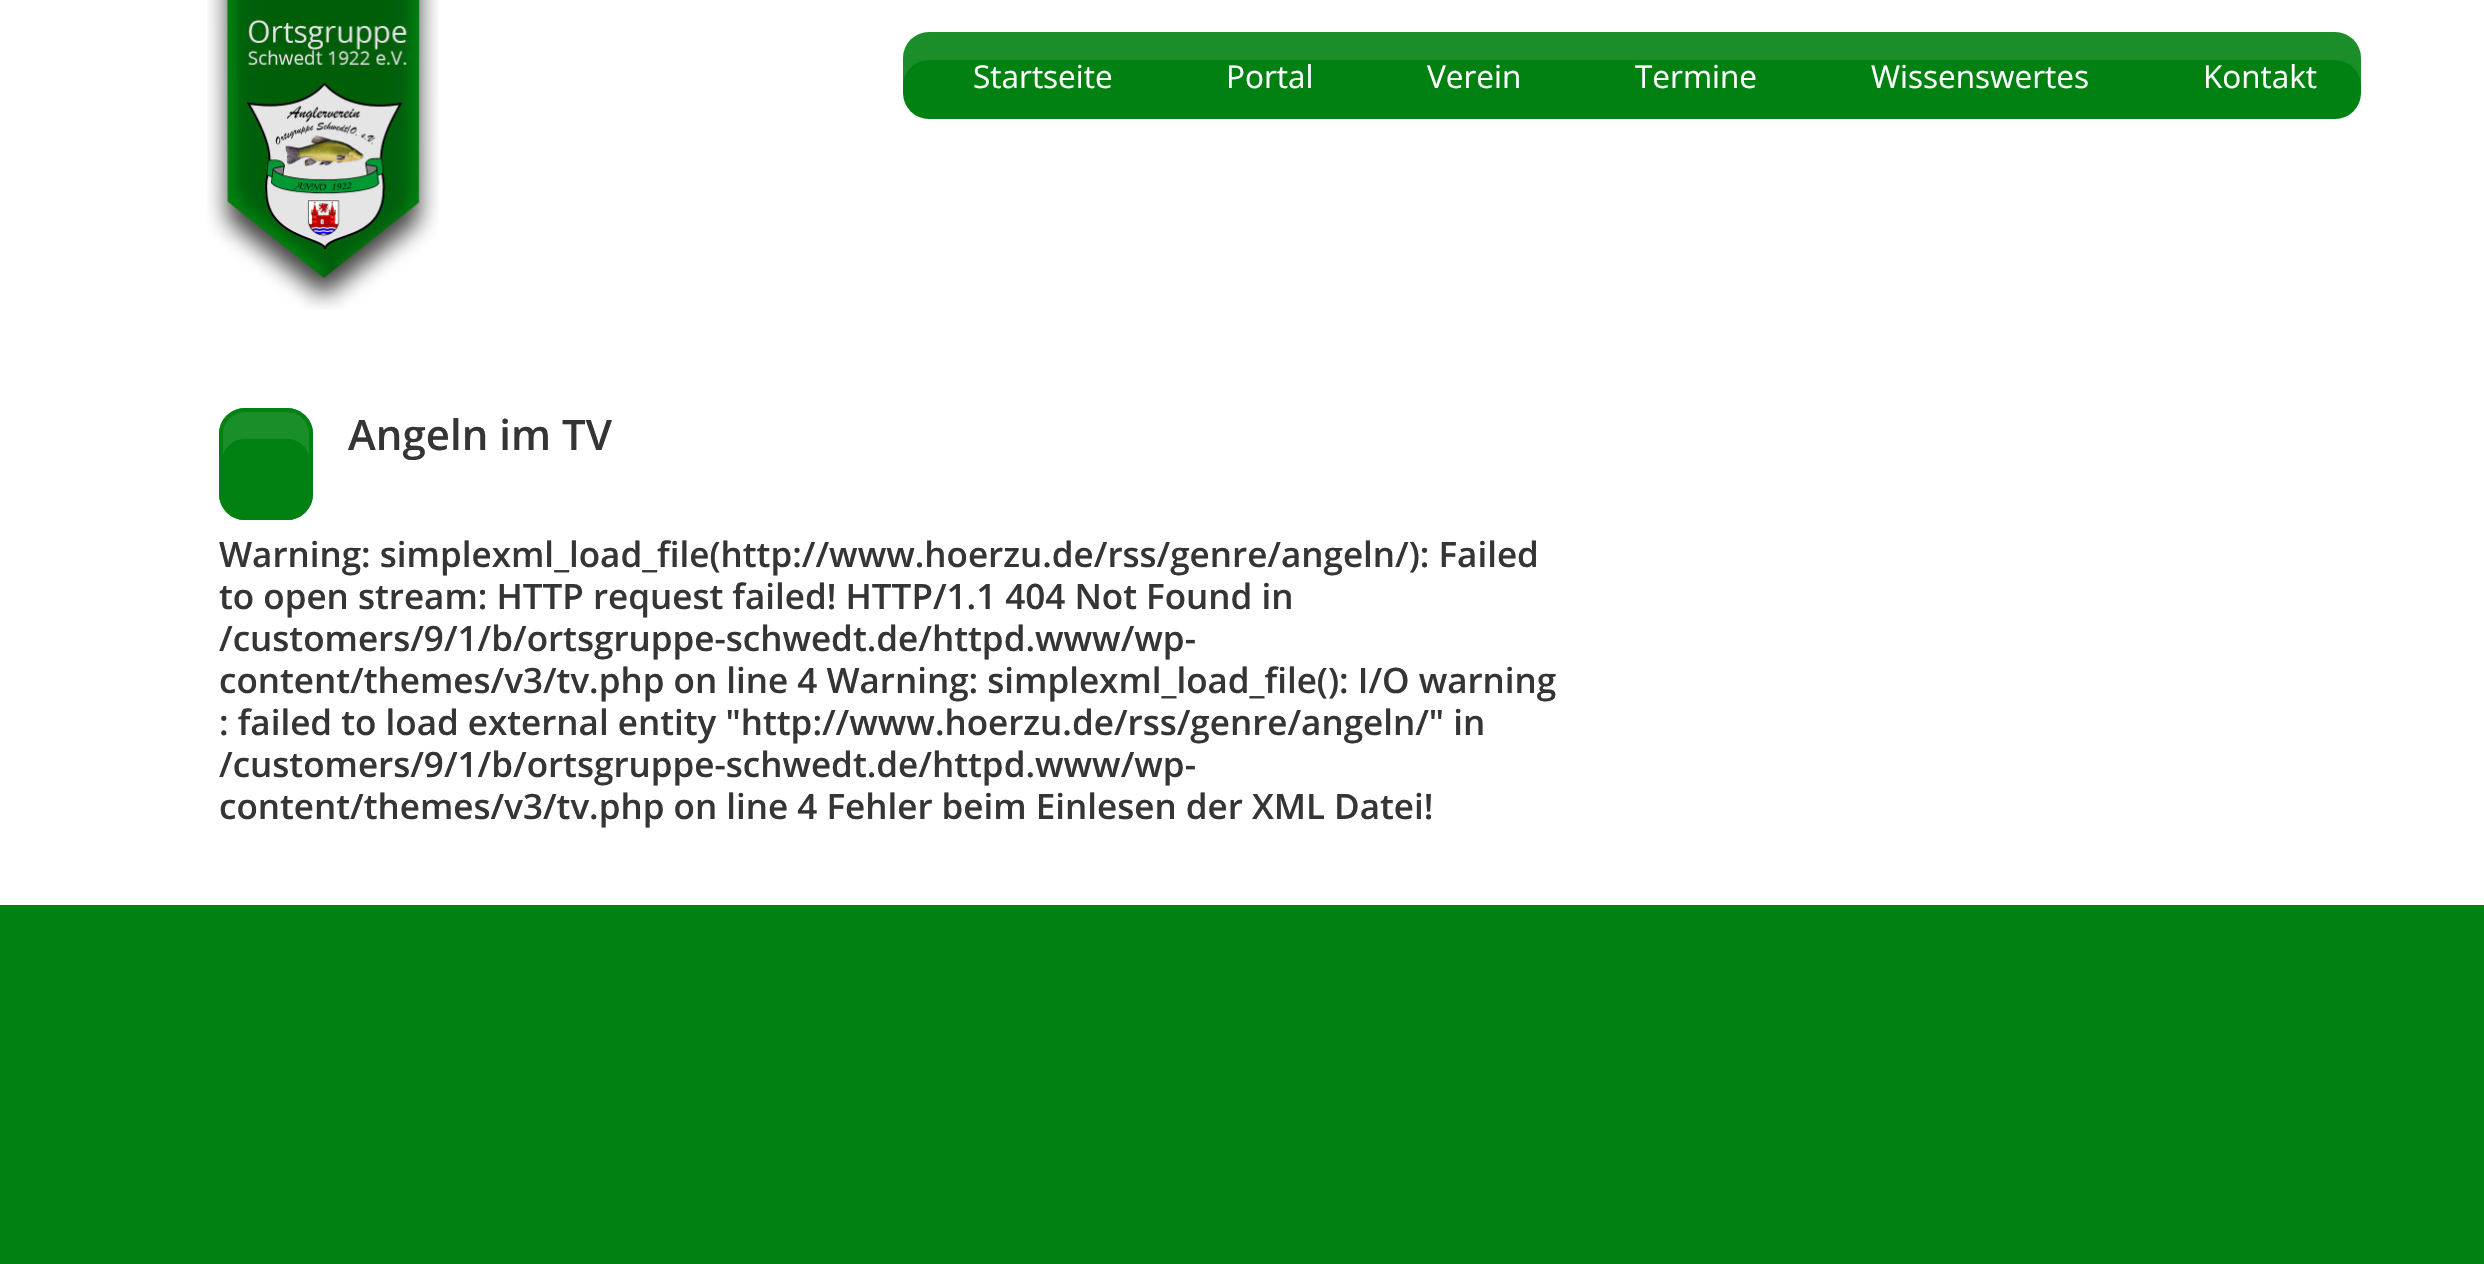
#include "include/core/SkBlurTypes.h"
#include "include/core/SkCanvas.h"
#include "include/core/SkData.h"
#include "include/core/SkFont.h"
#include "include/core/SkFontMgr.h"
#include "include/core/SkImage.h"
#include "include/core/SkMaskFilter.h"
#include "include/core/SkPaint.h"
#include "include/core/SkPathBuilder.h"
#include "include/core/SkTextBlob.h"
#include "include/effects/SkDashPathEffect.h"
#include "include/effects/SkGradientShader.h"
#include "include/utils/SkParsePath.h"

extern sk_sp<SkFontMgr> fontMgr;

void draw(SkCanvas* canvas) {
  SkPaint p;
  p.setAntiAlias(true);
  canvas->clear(SkColorSetRGB(1, 129, 17));
  p.setColor(SK_ColorWHITE);
  canvas->drawRect(SkRect::MakeLTRB(0, 0, 2484, 905), p);
  canvas->drawImageRect(SkImages::DeferredFromEncodedData(SkData::MakeFromFileName("images/1.png")), SkRect::MakeLTRB(207, 0, 439, 310), SkSamplingOptions());
  p.setColor(SkColorSetRGB(1, 129, 17));
  canvas->drawRoundRect(SkRect::MakeLTRB(903, 32, 2361, 119), 26, 26, p);
  p.setColor(SkColorSetARGB(26, 255, 255, 255));
  canvas->drawPath(SkPathBuilder().moveTo(929, 60).lineTo(2334, 60).cubicTo(2349, 60, 2361, 71, 2361, 86).lineTo(2361, 58).cubicTo(2361, 44, 2349, 32, 2335, 32).lineTo(929, 32).cubicTo(915, 32, 903, 44, 903, 58).lineTo(903, 86).cubicTo(903, 71, 915, 60, 929, 60).close().detach(), p);
  p.setColor(SkColorSetRGB(1, 129, 17));
  canvas->drawRoundRect(SkRect::MakeLTRB(219, 408, 313, 520), 26, 26, p);
  p.setColor(SkColorSetRGB(26, 142, 41));
  canvas->drawPath(SkPathBuilder().moveTo(245, 439).lineTo(287, 439).cubicTo(300, 439, 310, 449, 310, 462).lineTo(310, 434).cubicTo(310, 421, 300, 411, 287, 411).lineTo(245, 411).cubicTo(232, 411, 222, 421, 222, 434).lineTo(222, 462).cubicTo(222, 449, 232, 439, 245, 439).close().detach(), p);
  p.setStyle(SkPaint::kStroke_Style);
  p.setStrokeWidth(4);
  p.setColor(SkColorSetRGB(1, 129, 17));
  canvas->drawRoundRect(SkRect::MakeLTRB(221, 410, 311, 518), 24, 24, p);
  SkFont font1(fontMgr->matchFamilyStyle("Open Sans", SkFontStyle::Normal()), 31.5f);
  font1.setSubpixel(true);
  p.setStyle(SkPaint::kFill_Style);
  p.setColor(SK_ColorWHITE);
  canvas->drawString("Startseite", 973, 88, font1, p);
  canvas->drawString("Portal", 1226, 88, font1, p);
  canvas->drawString("Verein", 1427, 88, font1, p);
  canvas->drawString("Termine", 1635, 88, font1, p);
  canvas->drawString("Wissenswertes", 1871, 88, font1, p);
  canvas->drawString("Kontakt", 2203, 88, font1, p);
  SkFont font2(fontMgr->matchFamilyStyle("Open Sans", SkFontStyle(600, SkFontStyle::kNormal_Width, SkFontStyle::kUpright_Slant)), 42);
  font2.setSubpixel(true);
  p.setColor(SkColorSetRGB(54, 53, 53));
  canvas->drawString("Angeln im TV", 348, 450, font2, p);
  SkFont font3(fontMgr->matchFamilyStyle("Open Sans", SkFontStyle(600, SkFontStyle::kNormal_Width, SkFontStyle::kUpright_Slant)), 35);
  font3.setSubpixel(true);
  canvas->drawString("Warning: simplexml_load_file(http://www.hoerzu.de/rss/genre/angeln/): Failed", 219, 567, font3, p);
  canvas->drawString("to open stream: HTTP request failed! HTTP/1.1 404 Not Found in", 219, 609, font3, p);
  canvas->drawString("/customers/9/1/b/ortsgruppe-schwedt.de/httpd.www/wp-", 219, 651, font3, p);
  canvas->drawString("content/themes/v3/tv.php on line 4 Warning: simplexml_load_file(): I/O warning", 219, 693, font3, p);
  canvas->drawString(": failed to load external entity \"http://www.hoerzu.de/rss/genre/angeln/\" in", 219, 735, font3, p);
  canvas->drawString("/customers/9/1/b/ortsgruppe-schwedt.de/httpd.www/wp-", 219, 777, font3, p);
  canvas->drawString("content/themes/v3/tv.php on line 4 Fehler beim Einlesen der XML Datei!", 219, 819, font3, p);
}
